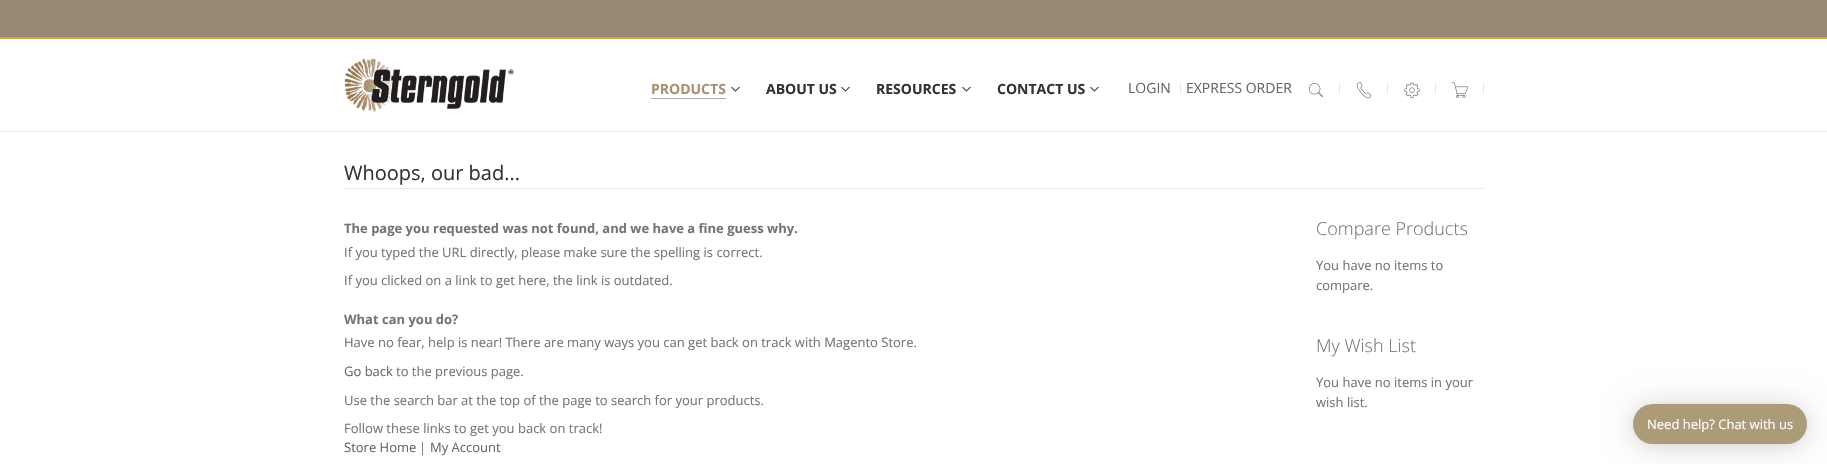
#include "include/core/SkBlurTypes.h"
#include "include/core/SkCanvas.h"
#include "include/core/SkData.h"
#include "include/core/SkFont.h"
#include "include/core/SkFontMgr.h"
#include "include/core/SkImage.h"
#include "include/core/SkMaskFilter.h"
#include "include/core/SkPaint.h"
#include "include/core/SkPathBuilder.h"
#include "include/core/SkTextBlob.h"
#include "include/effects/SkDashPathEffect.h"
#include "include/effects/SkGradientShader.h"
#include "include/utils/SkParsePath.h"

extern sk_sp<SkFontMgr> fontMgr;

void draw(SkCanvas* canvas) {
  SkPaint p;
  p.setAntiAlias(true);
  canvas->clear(SK_ColorWHITE);
  p.setColor(SkColorSetRGB(152, 135, 115));
  canvas->drawRect(SkRect::MakeLTRB(0, 0, 1827, 37), p);
  p.setColor(SkColorSetRGB(201, 164, 74));
  canvas->drawRect(SkRect::MakeLTRB(0, 37, 1827, 39), p);
  p.setColor(SkColorSetRGB(235, 235, 235));
  canvas->drawRect(SkRect::MakeLTRB(0, 131, 1827, 132), p);
  canvas->drawImageRect(SkImages::DeferredFromEncodedData(SkData::MakeFromFileName("images/1.png")), SkRect::MakeLTRB(344, 58, 514, 112), SkSamplingOptions());
  p.setColor(SkColorSetRGB(170, 170, 170));
  canvas->drawRect(SkRect::MakeLTRB(651, 98, 726, 99), p);
  canvas->drawImageRect(SkImages::DeferredFromEncodedData(SkData::MakeFromFileName("images/2.png")), SkRect::MakeLTRB(731, 86, 740, 92), SkSamplingOptions());
  canvas->drawImageRect(SkImages::DeferredFromEncodedData(SkData::MakeFromFileName("images/2.png")), SkRect::MakeLTRB(841, 86, 850, 92), SkSamplingOptions());
  canvas->drawImageRect(SkImages::DeferredFromEncodedData(SkData::MakeFromFileName("images/2.png")), SkRect::MakeLTRB(962, 86, 971, 92), SkSamplingOptions());
  canvas->drawImageRect(SkImages::DeferredFromEncodedData(SkData::MakeFromFileName("images/2.png")), SkRect::MakeLTRB(1090, 86, 1099, 92), SkSamplingOptions());
  p.setColor(SkColorSetRGB(227, 227, 227));
  canvas->drawRect(SkRect::MakeLTRB(1180, 84, 1181, 94), p);
  canvas->drawImageRect(SkImages::DeferredFromEncodedData(SkData::MakeFromFileName("images/3.png")), SkRect::MakeLTRB(1308, 83, 1323, 98), SkSamplingOptions());
  canvas->drawRect(SkRect::MakeLTRB(1339, 84, 1340, 94), p);
  canvas->drawImageRect(SkImages::DeferredFromEncodedData(SkData::MakeFromFileName("images/4.png")), SkRect::MakeLTRB(1356, 82, 1372, 99), SkSamplingOptions());
  canvas->drawRect(SkRect::MakeLTRB(1387, 84, 1388, 94), p);
  canvas->drawImageRect(SkImages::DeferredFromEncodedData(SkData::MakeFromFileName("images/5.png")), SkRect::MakeLTRB(1404, 82, 1420, 98), SkSamplingOptions());
  canvas->drawRect(SkRect::MakeLTRB(1435, 84, 1436, 94), p);
  canvas->drawImageRect(SkImages::DeferredFromEncodedData(SkData::MakeFromFileName("images/6.png")), SkRect::MakeLTRB(1451, 82, 1469, 98), SkSamplingOptions());
  canvas->drawRect(SkRect::MakeLTRB(1483, 84, 1484, 94), p);
  p.setColor(SkColorSetRGB(234, 234, 234));
  canvas->drawRect(SkRect::MakeLTRB(344, 188, 1484, 189), p);
  p.setColor(SkColorSetARGB(41, 0, 0, 0));
  p.setMaskFilter(SkMaskFilter::MakeBlur(kNormal_SkBlurStyle, 16));
  canvas->drawRoundRect(SkRect::MakeLTRB(1633, 406, 1807, 446), 20, 20, p);
  p.setMaskFilter(nullptr);
  p.setColor(SkColorSetARGB(15, 0, 0, 0));
  p.setMaskFilter(SkMaskFilter::MakeBlur(kNormal_SkBlurStyle, 3));
  canvas->drawRoundRect(SkRect::MakeLTRB(1633, 405, 1807, 445), 20, 20, p);
  p.setMaskFilter(nullptr);
  p.setColor(SkColorSetRGB(171, 155, 120));
  canvas->drawRoundRect(SkRect::MakeLTRB(1633, 404, 1807, 444), 20, 20, p);
  SkFont font1(fontMgr->matchFamilyStyle("Open Sans", SkFontStyle::Bold()), 14);
  font1.setSubpixel(true);
  p.setColor(SkColorSetRGB(168, 144, 114));
  canvas->drawString("PRODUCTS", 651, 94, font1, p);
  p.setColor(SkColorSetRGB(51, 51, 51));
  canvas->drawString("ABOUT US", 766, 94, font1, p);
  canvas->drawString("RESOURCES", 876, 94, font1, p);
  canvas->drawString("CONTACT US", 997, 94, font1, p);
  SkFont font2(fontMgr->matchFamilyStyle("Open Sans", SkFontStyle::Normal()), 14);
  font2.setSubpixel(true);
  p.setColor(SkColorSetRGB(102, 102, 102));
  canvas->drawString("LOGIN", 1128, 93, font2, p);
  canvas->drawString("EXPRESS ORDER", 1186, 93, font2, p);
  SkFont font3(fontMgr->matchFamilyStyle("Open Sans", SkFontStyle::Normal()), 20);
  font3.setSubpixel(true);
  p.setColor(SkColorSetRGB(51, 51, 51));
  canvas->drawString("Whoops, our bad...", 344, 180, font3, p);
  SkFont font4(fontMgr->matchFamilyStyle("Open Sans", SkFontStyle::Bold()), 13);
  font4.setSubpixel(true);
  p.setColor(SkColorSetRGB(117, 117, 117));
  canvas->drawString("The page you requested was not found, and we have a fine guess why.", 344, 233, font4, p);
  SkFont font5(fontMgr->matchFamilyStyle("Open Sans", SkFontStyle::Normal()), 13);
  font5.setSubpixel(true);
  canvas->drawString("If you typed the URL directly, please make sure the spelling is correct.", 344, 257, font5, p);
  canvas->drawString("If you clicked on a link to get here, the link is outdated.", 344, 285, font5, p);
  canvas->drawString("What can you do?", 344, 324, font4, p);
  canvas->drawString("Have no fear, help is near! There are many ways you can get back on track with Magento Store.", 344, 347, font5, p);
  p.setColor(SkColorSetRGB(102, 102, 102));
  canvas->drawString("Go back", 344, 376, font5, p);
  p.setColor(SkColorSetRGB(117, 117, 117));
  canvas->drawString("to the previous page.", 396, 376, font5, p);
  canvas->drawString("Use the search bar at the top of the page to search for your products.", 344, 405, font5, p);
  canvas->drawString("Follow these links to get you back on track!", 344, 433, font5, p);
  p.setColor(SkColorSetRGB(102, 102, 102));
  canvas->drawString("Store Home", 344, 452, font5, p);
  p.setColor(SkColorSetRGB(117, 117, 117));
  canvas->drawString("|", 419, 452, font5, p);
  p.setColor(SkColorSetRGB(102, 102, 102));
  canvas->drawString("My Account", 430, 452, font5, p);
  SkFont font6(fontMgr->matchFamilyStyle("Open Sans", SkFontStyle(300, SkFontStyle::kNormal_Width, SkFontStyle::kUpright_Slant)), 18);
  font6.setSubpixel(true);
  p.setColor(SkColorSetRGB(117, 117, 117));
  canvas->drawString("Compare Products", 1316, 235, font6, p);
  canvas->drawString("You have no items to", 1316, 270, font5, p);
  canvas->drawString("compare.", 1316, 290, font5, p);
  canvas->drawString("My Wish List", 1316, 352, font6, p);
  canvas->drawString("You have no items in your", 1316, 387, font5, p);
  canvas->drawString("wish list.", 1316, 407, font5, p);
  p.setColor(SK_ColorWHITE);
  canvas->drawString("Need help? Chat with us", 1647, 429, font5, p);
}
